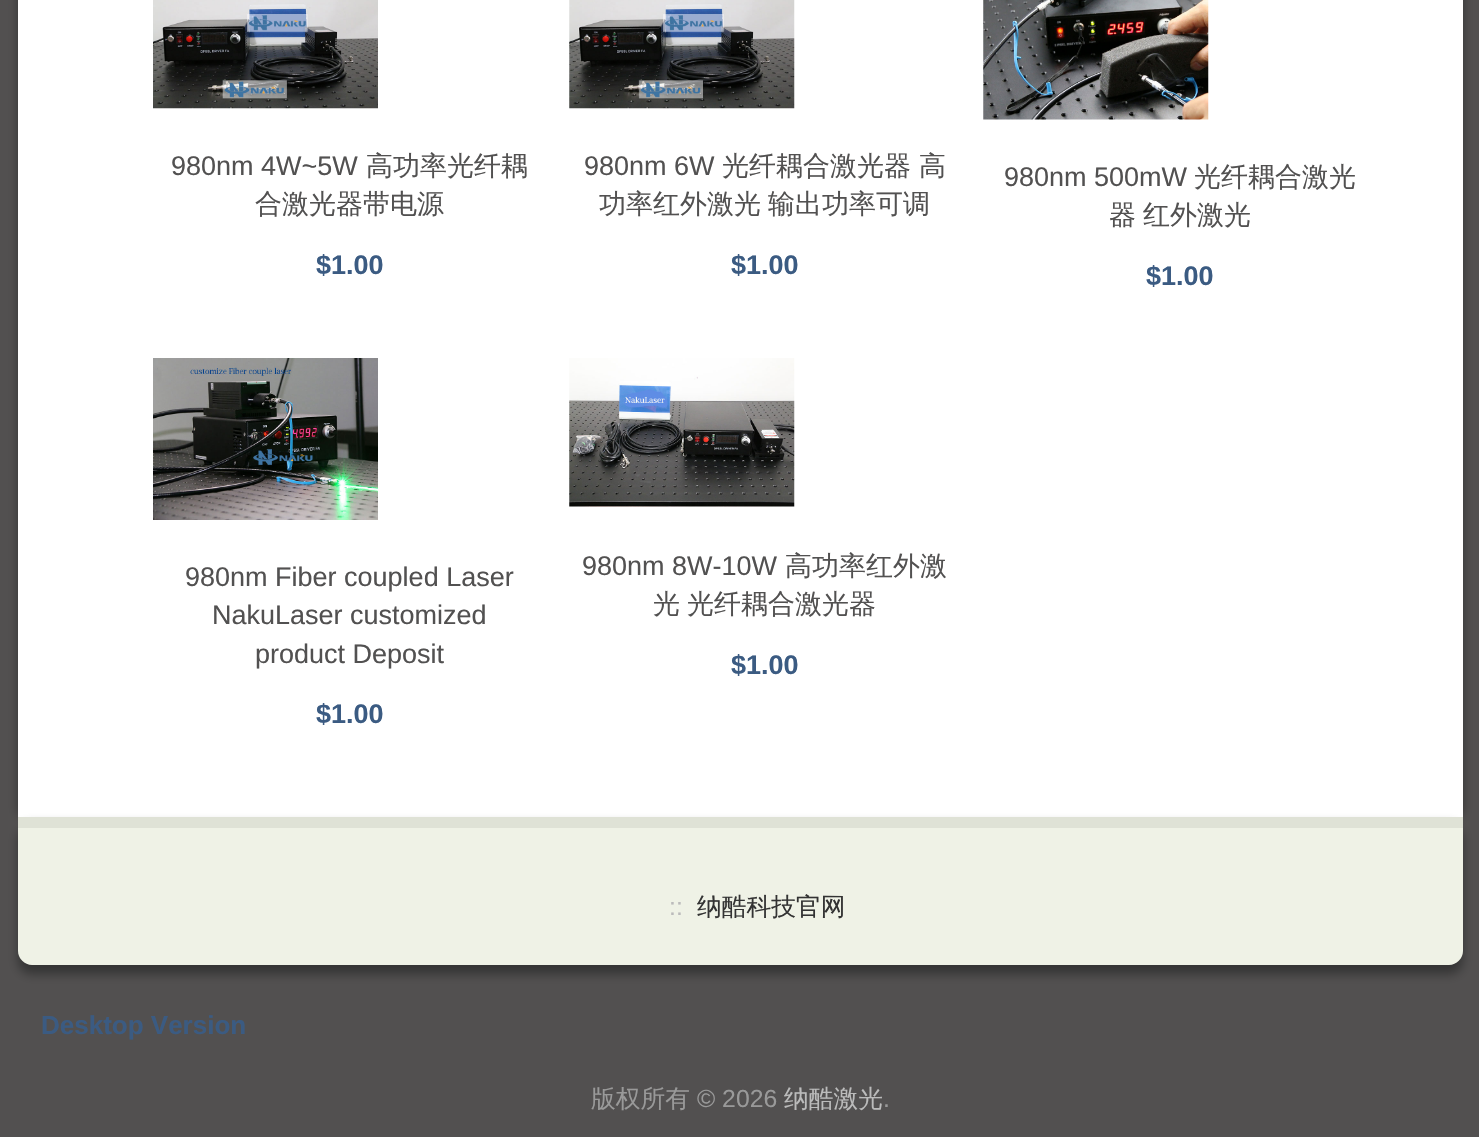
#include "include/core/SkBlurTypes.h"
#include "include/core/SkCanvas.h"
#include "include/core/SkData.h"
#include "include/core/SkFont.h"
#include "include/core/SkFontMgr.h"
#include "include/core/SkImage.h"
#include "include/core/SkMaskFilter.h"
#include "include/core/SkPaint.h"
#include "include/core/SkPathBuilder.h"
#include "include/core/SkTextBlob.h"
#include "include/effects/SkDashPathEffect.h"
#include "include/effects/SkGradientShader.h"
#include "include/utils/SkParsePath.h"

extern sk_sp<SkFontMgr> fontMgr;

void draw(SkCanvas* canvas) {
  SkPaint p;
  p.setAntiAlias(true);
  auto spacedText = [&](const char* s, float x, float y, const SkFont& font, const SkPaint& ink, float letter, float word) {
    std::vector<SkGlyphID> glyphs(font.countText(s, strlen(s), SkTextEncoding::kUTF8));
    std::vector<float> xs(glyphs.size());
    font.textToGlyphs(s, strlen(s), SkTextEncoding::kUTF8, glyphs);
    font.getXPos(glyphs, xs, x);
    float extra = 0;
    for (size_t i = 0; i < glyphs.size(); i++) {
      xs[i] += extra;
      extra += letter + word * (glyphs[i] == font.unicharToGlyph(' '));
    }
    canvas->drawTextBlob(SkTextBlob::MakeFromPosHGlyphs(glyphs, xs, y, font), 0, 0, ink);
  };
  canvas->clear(SkColorSetRGB(82, 80, 80));
  p.setColor(SkColorSetRGB(51, 51, 51));
  p.setMaskFilter(SkMaskFilter::MakeBlur(kNormal_SkBlurStyle, 5.5f));
  canvas->drawRoundRect(SkRect::MakeLTRB(18, -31, 1463, 821), 14, 14, p);
  p.setMaskFilter(nullptr);
  p.setColor(SK_ColorWHITE);
  canvas->drawRect(SkRect::MakeLTRB(18, 0, 1463, 817), p);
  canvas->drawImageRect(SkImages::DeferredFromEncodedData(SkData::MakeFromFileName("images/1.png")), SkRect::MakeLTRB(153, 0, 378, 109), SkSamplingOptions());
  canvas->drawImageRect(SkImages::DeferredFromEncodedData(SkData::MakeFromFileName("images/2.png")), SkRect::MakeLTRB(569, 0, 795, 109), SkSamplingOptions());
  canvas->drawImageRect(SkImages::DeferredFromEncodedData(SkData::MakeFromFileName("images/3.png")), SkRect::MakeLTRB(983, 0, 1209, 120), SkSamplingOptions());
  canvas->drawImageRect(SkImages::DeferredFromEncodedData(SkData::MakeFromFileName("images/4.png")), SkRect::MakeLTRB(153, 358, 378, 520), SkSamplingOptions());
  canvas->drawImageRect(SkImages::DeferredFromEncodedData(SkData::MakeFromFileName("images/5.png")), SkRect::MakeLTRB(569, 358, 795, 507), SkSamplingOptions());
  p.setColor(SkColorSetRGB(51, 51, 51));
  p.setMaskFilter(SkMaskFilter::MakeBlur(kNormal_SkBlurStyle, 5.5f));
  canvas->drawRoundRect(SkRect::MakeLTRB(18, 826, 1463, 974), 14, 14, p);
  p.setMaskFilter(nullptr);
  p.setColor(SkColorSetRGB(239, 242, 230));
  canvas->drawPath(SkPathBuilder().moveTo(18, 817).lineTo(1463, 817).lineTo(1463, 951).cubicTo(1463, 958.5f, 1456.5f, 965, 1449, 965).lineTo(32, 965).cubicTo(24.5f, 965, 18, 958.5f, 18, 951).close().detach(), p);
  p.setColor(SkColorSetRGB(223, 226, 214));
  canvas->drawRect(SkRect::MakeLTRB(18, 817, 1463, 828), p);
  SkFont font1(fontMgr->matchFamilyStyle("Liberation Sans", SkFontStyle::Normal()), 27);
  font1.setSubpixel(true);
  p.setColor(SkColorSetRGB(82, 81, 81));
  canvas->drawString("980nm 4W~5W", 171, 175, font1, p);
  SkFont font2(fontMgr->matchFamilyStyle("WenQuanYi Zen Hei", SkFontStyle(500, SkFontStyle::kNormal_Width, SkFontStyle::kUpright_Slant)), 27);
  font2.setSubpixel(true);
  canvas->drawString("高功率光纤耦", 366, 175, font2, p);
  canvas->drawString("合激光器带电源", 255, 213, font2, p);
  SkFont font3(fontMgr->matchFamilyStyle("Liberation Sans", SkFontStyle::Bold()), 27);
  font3.setSubpixel(true);
  p.setColor(SkColorSetRGB(59, 91, 130));
  canvas->drawString("$1.00", 316, 274, font3, p);
  p.setColor(SkColorSetRGB(82, 81, 81));
  canvas->drawString("980nm 6W", 584, 175, font1, p);
  canvas->drawString("光纤耦合激光器", 722, 175, font2, p);
  canvas->drawString("高", 919, 175, font2, p);
  spacedText("功率红外激光 输出功率可调", 599, 213, font2, p, 0, -1);
  p.setColor(SkColorSetRGB(59, 91, 130));
  canvas->drawString("$1.00", 731, 274, font3, p);
  p.setColor(SkColorSetRGB(82, 81, 81));
  canvas->drawString("980nm 500mW", 1004, 186, font1, p);
  canvas->drawString("光纤耦合激光", 1194, 186, font2, p);
  spacedText("器 红外激光", 1109, 224, font2, p, 0, -1);
  p.setColor(SkColorSetRGB(59, 91, 130));
  canvas->drawString("$1.00", 1146, 285, font3, p);
  p.setColor(SkColorSetRGB(82, 81, 81));
  canvas->drawString("980nm Fiber coupled Laser", 185, 586, font1, p);
  canvas->drawString("NakuLaser customized", 212, 624, font1, p);
  canvas->drawString("product Deposit", 255, 663, font1, p);
  p.setColor(SkColorSetRGB(59, 91, 130));
  canvas->drawString("$1.00", 316, 723, font3, p);
  p.setColor(SkColorSetRGB(82, 81, 81));
  canvas->drawString("980nm 8W-10W", 582, 575, font1, p);
  canvas->drawString("高功率红外激", 785, 575, font2, p);
  spacedText("光 光纤耦合激光器", 653, 613, font2, p, 0, -1);
  p.setColor(SkColorSetRGB(59, 91, 130));
  canvas->drawString("$1.00", 731, 674, font3, p);
  SkFont font4(fontMgr->matchFamilyStyle("Liberation Sans", SkFontStyle::Normal()), 24.75f);
  font4.setSubpixel(true);
  p.setColor(SkColorSetRGB(187, 187, 187));
  canvas->drawString("::", 669, 915, font4, p);
  SkFont font5(fontMgr->matchFamilyStyle("WenQuanYi Zen Hei", SkFontStyle(500, SkFontStyle::kNormal_Width, SkFontStyle::kUpright_Slant)), 24.75f);
  font5.setSubpixel(true);
  p.setColor(SkColorSetRGB(51, 51, 51));
  canvas->drawString("纳酷科技官网", 697, 915, font5, p);
  SkFont font6(fontMgr->matchFamilyStyle("Liberation Sans", SkFontStyle::Bold()), 26);
  font6.setSubpixel(true);
  p.setColor(SkColorSetRGB(59, 91, 130));
  canvas->drawString("Desktop Version", 41, 1034, font6, p);
  p.setColor(SkColorSetRGB(153, 153, 153));
  canvas->drawString("版权所有", 591, 1107, font5, p);
  canvas->drawString("© 2026", 697, 1107, font4, p);
  p.setColor(SkColorSetRGB(187, 187, 187));
  canvas->drawString("纳酷激光", 784, 1107, font5, p);
  p.setColor(SkColorSetRGB(153, 153, 153));
  canvas->drawString(".", 883, 1107, font4, p);
}
